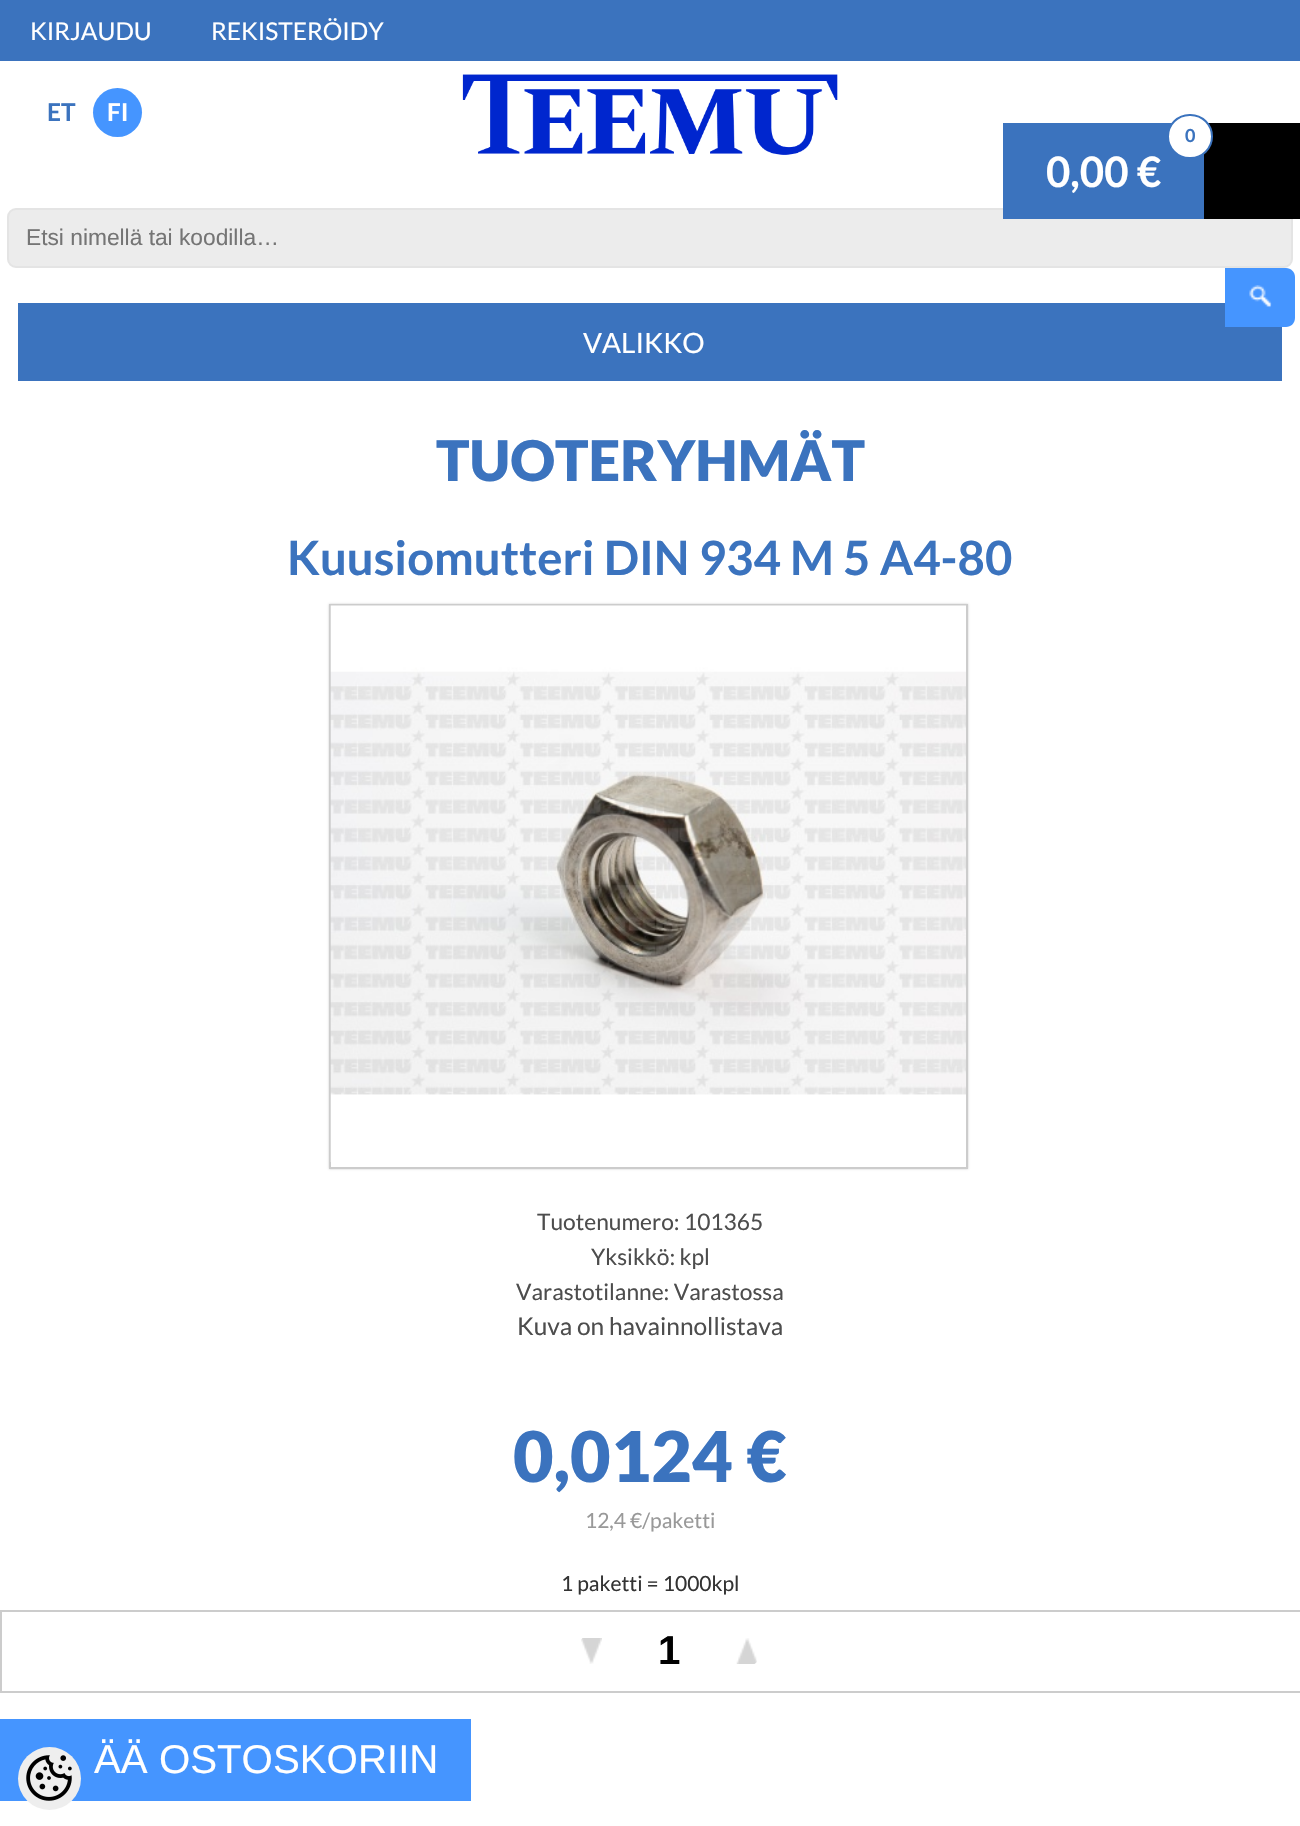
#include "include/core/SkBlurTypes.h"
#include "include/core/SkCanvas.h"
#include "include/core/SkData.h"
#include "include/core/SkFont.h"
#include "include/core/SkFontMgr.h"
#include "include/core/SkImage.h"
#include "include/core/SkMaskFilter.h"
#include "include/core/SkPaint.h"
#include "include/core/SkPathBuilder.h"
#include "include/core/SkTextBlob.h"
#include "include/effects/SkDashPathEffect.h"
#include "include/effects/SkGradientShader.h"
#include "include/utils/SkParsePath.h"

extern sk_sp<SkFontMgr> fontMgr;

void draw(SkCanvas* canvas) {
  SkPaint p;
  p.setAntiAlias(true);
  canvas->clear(SK_ColorWHITE);
  p.setColor(SkColorSetRGB(59, 115, 190));
  canvas->drawRect(SkRect::MakeLTRB(0, 0, 1300, 61), p);
  p.setColor(SkColorSetRGB(69, 149, 255));
  canvas->drawCircle(117.5f, 112.5f, 24.5f, p);
  canvas->drawImageRect(SkImages::DeferredFromEncodedData(SkData::MakeFromFileName("images/1.png")), SkRect::MakeLTRB(462, 74, 838, 155), SkSamplingOptions());
  p.setColor(SkColorSetRGB(236, 236, 236));
  canvas->drawRoundRect(SkRect::MakeLTRB(8, 209, 1292, 267), 8, 8, p);
  p.setStyle(SkPaint::kStroke_Style);
  p.setStrokeWidth(2);
  p.setColor(SkColorSetRGB(228, 228, 228));
  canvas->drawRoundRect(SkRect::MakeLTRB(8, 209, 1292, 267), 8, 8, p);
  p.setStyle(SkPaint::kFill_Style);
  p.setColor(SK_ColorBLACK);
  canvas->drawRect(SkRect::MakeLTRB(1204, 123, 1300, 219), p);
  p.setColor(SkColorSetRGB(59, 115, 190));
  canvas->drawRect(SkRect::MakeLTRB(1003, 123, 1204, 219), p);
  p.setColor(SK_ColorWHITE);
  canvas->drawRoundRect(SkRect::MakeLTRB(1168, 115, 1212, 158), 21.5f, 21.5f, p);
  p.setStyle(SkPaint::kStroke_Style);
  p.setColor(SkColorSetRGB(59, 115, 190));
  canvas->drawRoundRect(SkRect::MakeLTRB(1168, 115, 1212, 158), 21.5f, 21.5f, p);
  p.setStyle(SkPaint::kFill_Style);
  canvas->drawRect(SkRect::MakeLTRB(18, 303, 1282, 381), p);
  p.setColor(SkColorSetRGB(69, 149, 255));
  canvas->drawPath(SkPathBuilder().moveTo(1225, 268).lineTo(1286, 268).cubicTo(1291, 268, 1295, 272, 1295, 277).lineTo(1295, 318).cubicTo(1295, 323, 1291, 327, 1286, 327).lineTo(1225, 327).close().detach(), p);
  canvas->drawImageRect(SkImages::DeferredFromEncodedData(SkData::MakeFromFileName("images/2.png")), SkRect::MakeLTRB(1249, 285, 1272, 308), SkSamplingOptions());
  canvas->drawRect(SkRect::MakeLTRB(0, 1719, 471, 1801), p);
  p.setColor(SkColorSetRGB(238, 238, 238));
  canvas->drawCircle(49.5f, 1778.5f, 31.5f, p);
  canvas->drawImageRect(SkImages::DeferredFromEncodedData(SkData::MakeFromFileName("images/3.png")), SkRect::MakeLTRB(26, 1755, 72, 1801), SkSamplingOptions());
  canvas->save();
  canvas->clipPath(SkPathBuilder(SkPathFillType::kEvenOdd).moveTo(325, 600).lineTo(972, 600).lineTo(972, 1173).lineTo(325, 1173).close().moveTo(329, 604).lineTo(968, 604).lineTo(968, 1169).lineTo(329, 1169).close().detach(), true);
  p.setColor(SkColorSetRGB(204, 204, 204));
  p.setMaskFilter(SkMaskFilter::MakeBlur(kNormal_SkBlurStyle, 1));
  canvas->drawRect(SkRect::MakeLTRB(329, 604, 968, 1169), p);
  p.setMaskFilter(nullptr);
  canvas->restore();
  p.setStyle(SkPaint::kStroke_Style);
  canvas->drawRect(SkRect::MakeLTRB(330, 605, 967, 1168), p);
  canvas->drawImageRect(SkImages::DeferredFromEncodedData(SkData::MakeFromFileName("images/4.png")), SkRect::MakeLTRB(330, 605, 966, 1162), SkSamplingOptions());
  p.setStyle(SkPaint::kFill_Style);
  canvas->drawRect(SkRect::MakeLTRB(0, 1610, 1300, 1612), p);
  canvas->drawRect(SkRect::MakeLTRB(0, 1691, 1300, 1693), p);
  canvas->drawRect(SkRect::MakeLTRB(0, 1610, 2, 1692), p);
  canvas->drawImageRect(SkImages::DeferredFromEncodedData(SkData::MakeFromFileName("images/5.png")), SkRect::MakeLTRB(581, 1638, 602, 1664), SkSamplingOptions());
  canvas->drawImageRect(SkImages::DeferredFromEncodedData(SkData::MakeFromFileName("images/6.png")), SkRect::MakeLTRB(736, 1638, 757, 1664), SkSamplingOptions());
  SkFont font1(fontMgr->matchFamilyStyle("Lato", SkFontStyle::Normal()), 24.5f);
  font1.setSubpixel(true);
  p.setColor(SK_ColorWHITE);
  canvas->drawString("KIRJAUDU", 30, 40, font1, p);
  canvas->drawString("REKISTERÖIDY", 211, 40, font1, p);
  SkFont font2(fontMgr->matchFamilyStyle("Lato", SkFontStyle::Bold()), 24.5f);
  font2.setSubpixel(true);
  p.setColor(SkColorSetRGB(59, 115, 190));
  canvas->drawString("ET", 47, 121, font2, p);
  p.setColor(SK_ColorWHITE);
  canvas->drawString("FI", 107, 121, font2, p);
  SkFont font3(fontMgr->matchFamilyStyle("Lato", SkFontStyle::Bold()), 18);
  font3.setSubpixel(true);
  p.setColor(SkColorSetRGB(59, 115, 190));
  canvas->drawString("0", 1185, 142, font3, p);
  SkFont font4(fontMgr->matchFamilyStyle("Lato", SkFontStyle::Bold()), 42);
  font4.setSubpixel(true);
  p.setColor(SK_ColorWHITE);
  canvas->drawString("0,00 €", 1046, 187, font4, p);
  SkFont font5(fontMgr->matchFamilyStyle("Liberation Sans", SkFontStyle::Normal()), 22.75f);
  font5.setSubpixel(true);
  p.setColor(SkColorSetRGB(117, 117, 117));
  canvas->drawString("Etsi nimellä tai koodilla…", 26, 245, font5, p);
  SkFont font6(fontMgr->matchFamilyStyle("Lato", SkFontStyle::Normal()), 28);
  font6.setSubpixel(true);
  p.setColor(SK_ColorWHITE);
  canvas->drawString("VALIKKO", 583, 353, font6, p);
  SkFont font7(fontMgr->matchFamilyStyle("Lato", SkFontStyle(900, SkFontStyle::kNormal_Width, SkFontStyle::kUpright_Slant)), 56);
  font7.setSubpixel(true);
  p.setColor(SkColorSetRGB(59, 115, 190));
  canvas->drawString("TUOTERYHMÄT", 436, 481, font7, p);
  SkFont font8(fontMgr->matchFamilyStyle("Lato", SkFontStyle::Bold()), 47.25f);
  font8.setSubpixel(true);
  canvas->drawString("Kuusiomutteri DIN 934 M 5 A4-80", 287, 575, font8, p);
  SkFont font9(fontMgr->matchFamilyStyle("Lato", SkFontStyle::Normal()), 22.75f);
  font9.setSubpixel(true);
  p.setColor(SkColorSetRGB(77, 77, 77));
  canvas->drawString("Tuotenumero: 101365", 537, 1230, font9, p);
  canvas->drawString("Yksikkö: kpl", 591, 1265, font9, p);
  canvas->drawString("Varastotilanne: Varastossa", 516, 1300, font9, p);
  canvas->drawString("Kuva on havainnollistava", 517, 1335, font1, p);
  SkFont font10(fontMgr->matchFamilyStyle("Lato", SkFontStyle(900, SkFontStyle::kNormal_Width, SkFontStyle::kUpright_Slant)), 70);
  font10.setSubpixel(true);
  p.setColor(SkColorSetRGB(59, 115, 190));
  canvas->drawString("0,0124 €", 513, 1482, font10, p);
  SkFont font11(fontMgr->matchFamilyStyle("Lato", SkFontStyle::Normal()), 21);
  font11.setSubpixel(true);
  p.setColor(SkColorSetRGB(153, 153, 153));
  canvas->drawString("12,4 €/paketti", 585, 1528, font11, p);
  p.setColor(SkColorSetRGB(51, 51, 51));
  canvas->drawString("1 paketti = 1000kpl", 561, 1591, font11, p);
  SkFont font12(fontMgr->matchFamilyStyle("Liberation Sans", SkFontStyle::Bold()), 40.25f);
  font12.setSubpixel(true);
  p.setColor(SK_ColorBLACK);
  canvas->drawString("1", 658, 1664, font12, p);
  SkFont font13(fontMgr->matchFamilyStyle("Liberation Sans", SkFontStyle::Normal()), 40.25f);
  font13.setSubpixel(true);
  p.setColor(SK_ColorWHITE);
  canvas->drawString("ÄÄ OSTOSKORIIN", 94, 1773, font13, p);
}
